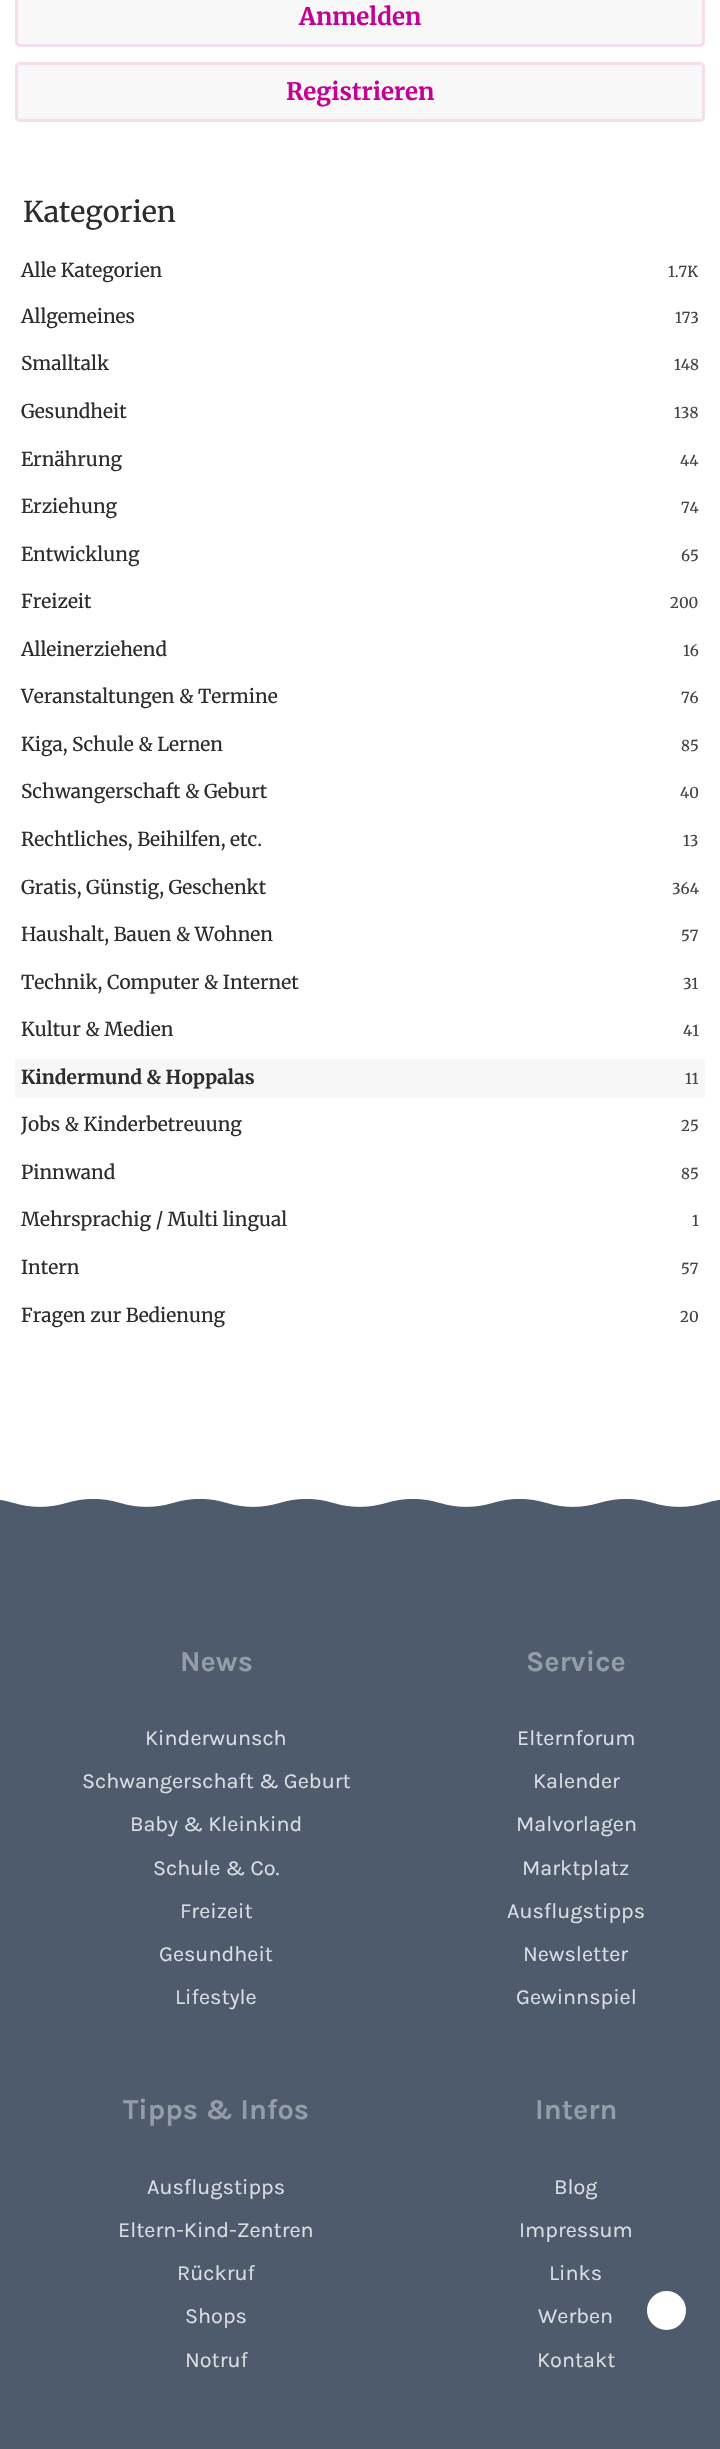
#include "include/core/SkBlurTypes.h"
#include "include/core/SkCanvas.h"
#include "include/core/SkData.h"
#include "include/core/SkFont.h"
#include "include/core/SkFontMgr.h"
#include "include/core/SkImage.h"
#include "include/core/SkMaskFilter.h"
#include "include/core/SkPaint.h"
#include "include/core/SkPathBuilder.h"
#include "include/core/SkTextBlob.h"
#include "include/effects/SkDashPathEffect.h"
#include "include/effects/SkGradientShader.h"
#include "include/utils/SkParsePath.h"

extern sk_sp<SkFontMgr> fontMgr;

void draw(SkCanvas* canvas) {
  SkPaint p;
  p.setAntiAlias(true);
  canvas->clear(SK_ColorWHITE);
  p.setColor(SkColorSetRGB(248, 248, 248));
  canvas->drawRoundRect(SkRect::MakeLTRB(15, -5, 705, 47), 5, 5, p);
  p.setStyle(SkPaint::kStroke_Style);
  p.setStrokeWidth(3);
  p.setColor(SkColorSetARGB(26, 197, 0, 151));
  canvas->drawRoundRect(SkRect::MakeLTRB(16.5f, -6.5f, 703.5f, 45.5f), 3.5f, 3.5f, p);
  p.setStyle(SkPaint::kFill_Style);
  p.setColor(SkColorSetRGB(248, 248, 248));
  canvas->drawRoundRect(SkRect::MakeLTRB(15, 62, 705, 122), 5, 5, p);
  p.setStyle(SkPaint::kStroke_Style);
  p.setColor(SkColorSetARGB(26, 197, 0, 151));
  canvas->drawRoundRect(SkRect::MakeLTRB(16.5f, 63.5f, 703.5f, 120.5f), 3.5f, 3.5f, p);
  p.setStyle(SkPaint::kFill_Style);
  p.setColor(SkColorSetRGB(247, 247, 247));
  canvas->drawRect(SkRect::MakeLTRB(15, 1059, 705, 1098), p);
  p.setColor(SkColorSetRGB(77, 91, 109));
  canvas->drawRect(SkRect::MakeLTRB(0, 1499, 720, 2449), p);
  canvas->drawImageRect(SkImages::DeferredFromEncodedData(SkData::MakeFromFileName("images/1.png")), SkRect::MakeLTRB(0, 1499, 720, 1507), SkSamplingOptions());
  p.setColor(SK_ColorWHITE);
  canvas->drawCircle(666.5f, 2310.5f, 21, p);
  p.setStyle(SkPaint::kStroke_Style);
  p.setColor(SkColorSetRGB(77, 91, 109));
  canvas->drawCircle(666.5f, 2310.5f, 21, p);
  SkFont font1(fontMgr->matchFamilyStyle("Merriweather", SkFontStyle::Bold()), 24);
  font1.setSubpixel(true);
  p.setStyle(SkPaint::kFill_Style);
  p.setColor(SkColorSetRGB(197, 0, 151));
  canvas->drawString("Anmelden", 299, 25, font1, p);
  canvas->drawString("Registrieren", 286, 100, font1, p);
  SkFont font2(fontMgr->matchFamilyStyle("Merriweather", SkFontStyle::Normal()), 28.75f);
  font2.setSubpixel(true);
  p.setColor(SkColorSetRGB(45, 45, 45));
  canvas->drawString("Kategorien", 23, 222, font2, p);
  SkFont font3(fontMgr->matchFamilyStyle("Merriweather", SkFontStyle::Normal()), 19.1f);
  font3.setSubpixel(true);
  canvas->drawString("Alle Kategorien", 21, 277, font3, p);
  SkFont font4(fontMgr->matchFamilyStyle("Merriweather", SkFontStyle::Normal()), 15);
  font4.setSubpixel(true);
  p.setColor(SkColorSetRGB(68, 68, 68));
  canvas->drawString("1.7K", 668, 277, font4, p);
  p.setColor(SkColorSetRGB(45, 45, 45));
  canvas->drawString("Allgemeines", 21, 323, font3, p);
  p.setColor(SkColorSetRGB(68, 68, 68));
  canvas->drawString("173", 675, 323, font4, p);
  p.setColor(SkColorSetRGB(45, 45, 45));
  canvas->drawString("Smalltalk", 21, 370, font3, p);
  p.setColor(SkColorSetRGB(68, 68, 68));
  canvas->drawString("148", 674, 370, font4, p);
  p.setColor(SkColorSetRGB(45, 45, 45));
  canvas->drawString("Gesundheit", 21, 418, font3, p);
  p.setColor(SkColorSetRGB(68, 68, 68));
  canvas->drawString("138", 674, 418, font4, p);
  p.setColor(SkColorSetRGB(45, 45, 45));
  canvas->drawString("Ernährung", 21, 466, font3, p);
  p.setColor(SkColorSetRGB(68, 68, 68));
  canvas->drawString("44", 680, 466, font4, p);
  p.setColor(SkColorSetRGB(45, 45, 45));
  canvas->drawString("Erziehung", 21, 513, font3, p);
  p.setColor(SkColorSetRGB(68, 68, 68));
  canvas->drawString("74", 681, 513, font4, p);
  p.setColor(SkColorSetRGB(45, 45, 45));
  canvas->drawString("Entwicklung", 21, 561, font3, p);
  p.setColor(SkColorSetRGB(68, 68, 68));
  canvas->drawString("65", 681, 561, font4, p);
  p.setColor(SkColorSetRGB(45, 45, 45));
  canvas->drawString("Freizeit", 21, 608, font3, p);
  p.setColor(SkColorSetRGB(68, 68, 68));
  canvas->drawString("200", 670, 608, font4, p);
  p.setColor(SkColorSetRGB(45, 45, 45));
  canvas->drawString("Alleinerziehend", 21, 656, font3, p);
  p.setColor(SkColorSetRGB(68, 68, 68));
  canvas->drawString("16", 683, 656, font4, p);
  p.setColor(SkColorSetRGB(45, 45, 45));
  canvas->drawString("Veranstaltungen & Termine", 21, 703, font3, p);
  p.setColor(SkColorSetRGB(68, 68, 68));
  canvas->drawString("76", 681, 703, font4, p);
  p.setColor(SkColorSetRGB(45, 45, 45));
  canvas->drawString("Kiga, Schule & Lernen", 21, 751, font3, p);
  p.setColor(SkColorSetRGB(68, 68, 68));
  canvas->drawString("85", 681, 751, font4, p);
  p.setColor(SkColorSetRGB(45, 45, 45));
  canvas->drawString("Schwangerschaft & Geburt", 21, 798, font3, p);
  p.setColor(SkColorSetRGB(68, 68, 68));
  canvas->drawString("40", 680, 798, font4, p);
  p.setColor(SkColorSetRGB(45, 45, 45));
  canvas->drawString("Rechtliches, Beihilfen, etc.", 21, 846, font3, p);
  p.setColor(SkColorSetRGB(68, 68, 68));
  canvas->drawString("13", 683, 846, font4, p);
  p.setColor(SkColorSetRGB(45, 45, 45));
  canvas->drawString("Gratis, Günstig, Geschenkt", 21, 894, font3, p);
  p.setColor(SkColorSetRGB(68, 68, 68));
  canvas->drawString("364", 672, 894, font4, p);
  p.setColor(SkColorSetRGB(45, 45, 45));
  canvas->drawString("Haushalt, Bauen & Wohnen", 21, 941, font3, p);
  p.setColor(SkColorSetRGB(68, 68, 68));
  canvas->drawString("57", 681, 941, font4, p);
  p.setColor(SkColorSetRGB(45, 45, 45));
  canvas->drawString("Technik, Computer & Internet", 21, 989, font3, p);
  p.setColor(SkColorSetRGB(68, 68, 68));
  canvas->drawString("31", 683, 989, font4, p);
  p.setColor(SkColorSetRGB(45, 45, 45));
  canvas->drawString("Kultur & Medien", 21, 1036, font3, p);
  p.setColor(SkColorSetRGB(68, 68, 68));
  canvas->drawString("41", 683, 1036, font4, p);
  SkFont font5(fontMgr->matchFamilyStyle("Merriweather", SkFontStyle::Bold()), 19.1f);
  font5.setSubpixel(true);
  p.setColor(SkColorSetRGB(45, 45, 45));
  canvas->drawString("Kindermund & Hoppalas", 21, 1084, font5, p);
  p.setColor(SkColorSetRGB(68, 68, 68));
  canvas->drawString("11", 685, 1084, font4, p);
  p.setColor(SkColorSetRGB(45, 45, 45));
  canvas->drawString("Jobs & Kinderbetreuung", 21, 1131, font3, p);
  p.setColor(SkColorSetRGB(68, 68, 68));
  canvas->drawString("25", 681, 1131, font4, p);
  p.setColor(SkColorSetRGB(45, 45, 45));
  canvas->drawString("Pinnwand", 21, 1179, font3, p);
  p.setColor(SkColorSetRGB(68, 68, 68));
  canvas->drawString("85", 681, 1179, font4, p);
  p.setColor(SkColorSetRGB(45, 45, 45));
  canvas->drawString("Mehrsprachig / Multi lingual", 21, 1226, font3, p);
  p.setColor(SkColorSetRGB(68, 68, 68));
  canvas->drawString("1", 692, 1226, font4, p);
  p.setColor(SkColorSetRGB(45, 45, 45));
  canvas->drawString("Intern", 21, 1274, font3, p);
  p.setColor(SkColorSetRGB(68, 68, 68));
  canvas->drawString("57", 681, 1274, font4, p);
  p.setColor(SkColorSetRGB(45, 45, 45));
  canvas->drawString("Fragen zur Bedienung", 21, 1322, font3, p);
  p.setColor(SkColorSetRGB(68, 68, 68));
  canvas->drawString("20", 680, 1322, font4, p);
  SkFont font6(fontMgr->matchFamilyStyle("Karla", SkFontStyle::Bold()), 28.75f);
  font6.setSubpixel(true);
  p.setColor(SkColorSetRGB(148, 157, 167));
  canvas->drawString("News", 180, 1671, font6, p);
  SkFont font7(fontMgr->matchFamilyStyle("Karla", SkFontStyle::Normal()), 21.6f);
  font7.setSubpixel(true);
  p.setColor(SkColorSetRGB(219, 222, 226));
  canvas->drawString("Kinderwunsch", 145, 1745, font7, p);
  canvas->drawString("Schwangerschaft & Geburt", 82, 1788, font7, p);
  canvas->drawString("Baby & Kleinkind", 130, 1831, font7, p);
  canvas->drawString("Schule & Co.", 153, 1875, font7, p);
  canvas->drawString("Freizeit", 180, 1918, font7, p);
  canvas->drawString("Gesundheit", 159, 1961, font7, p);
  canvas->drawString("Lifestyle", 175, 2004, font7, p);
  p.setColor(SkColorSetRGB(148, 157, 167));
  canvas->drawString("Service", 526, 1671, font6, p);
  p.setColor(SkColorSetRGB(219, 222, 226));
  canvas->drawString("Elternforum", 517, 1745, font7, p);
  canvas->drawString("Kalender", 533, 1788, font7, p);
  canvas->drawString("Malvorlagen", 516, 1831, font7, p);
  canvas->drawString("Marktplatz", 522, 1875, font7, p);
  canvas->drawString("Ausflugstipps", 507, 1918, font7, p);
  canvas->drawString("Newsletter", 523, 1961, font7, p);
  canvas->drawString("Gewinnspiel", 516, 2004, font7, p);
  p.setColor(SkColorSetRGB(148, 157, 167));
  canvas->drawString("Tipps & Infos", 123, 2119, font6, p);
  p.setColor(SkColorSetRGB(219, 222, 226));
  canvas->drawString("Ausflugstipps", 147, 2194, font7, p);
  canvas->drawString("Eltern-Kind-Zentren", 118, 2237, font7, p);
  canvas->drawString("Rückruf", 177, 2280, font7, p);
  canvas->drawString("Shops", 185, 2323, font7, p);
  canvas->drawString("Notruf", 185, 2367, font7, p);
  p.setColor(SkColorSetRGB(148, 157, 167));
  canvas->drawString("Intern", 535, 2119, font6, p);
  p.setColor(SkColorSetRGB(219, 222, 226));
  canvas->drawString("Blog", 554, 2194, font7, p);
  canvas->drawString("Impressum", 519, 2237, font7, p);
  canvas->drawString("Links", 549, 2280, font7, p);
  canvas->drawString("Werben", 538, 2323, font7, p);
  canvas->drawString("Kontakt", 537, 2367, font7, p);
}
